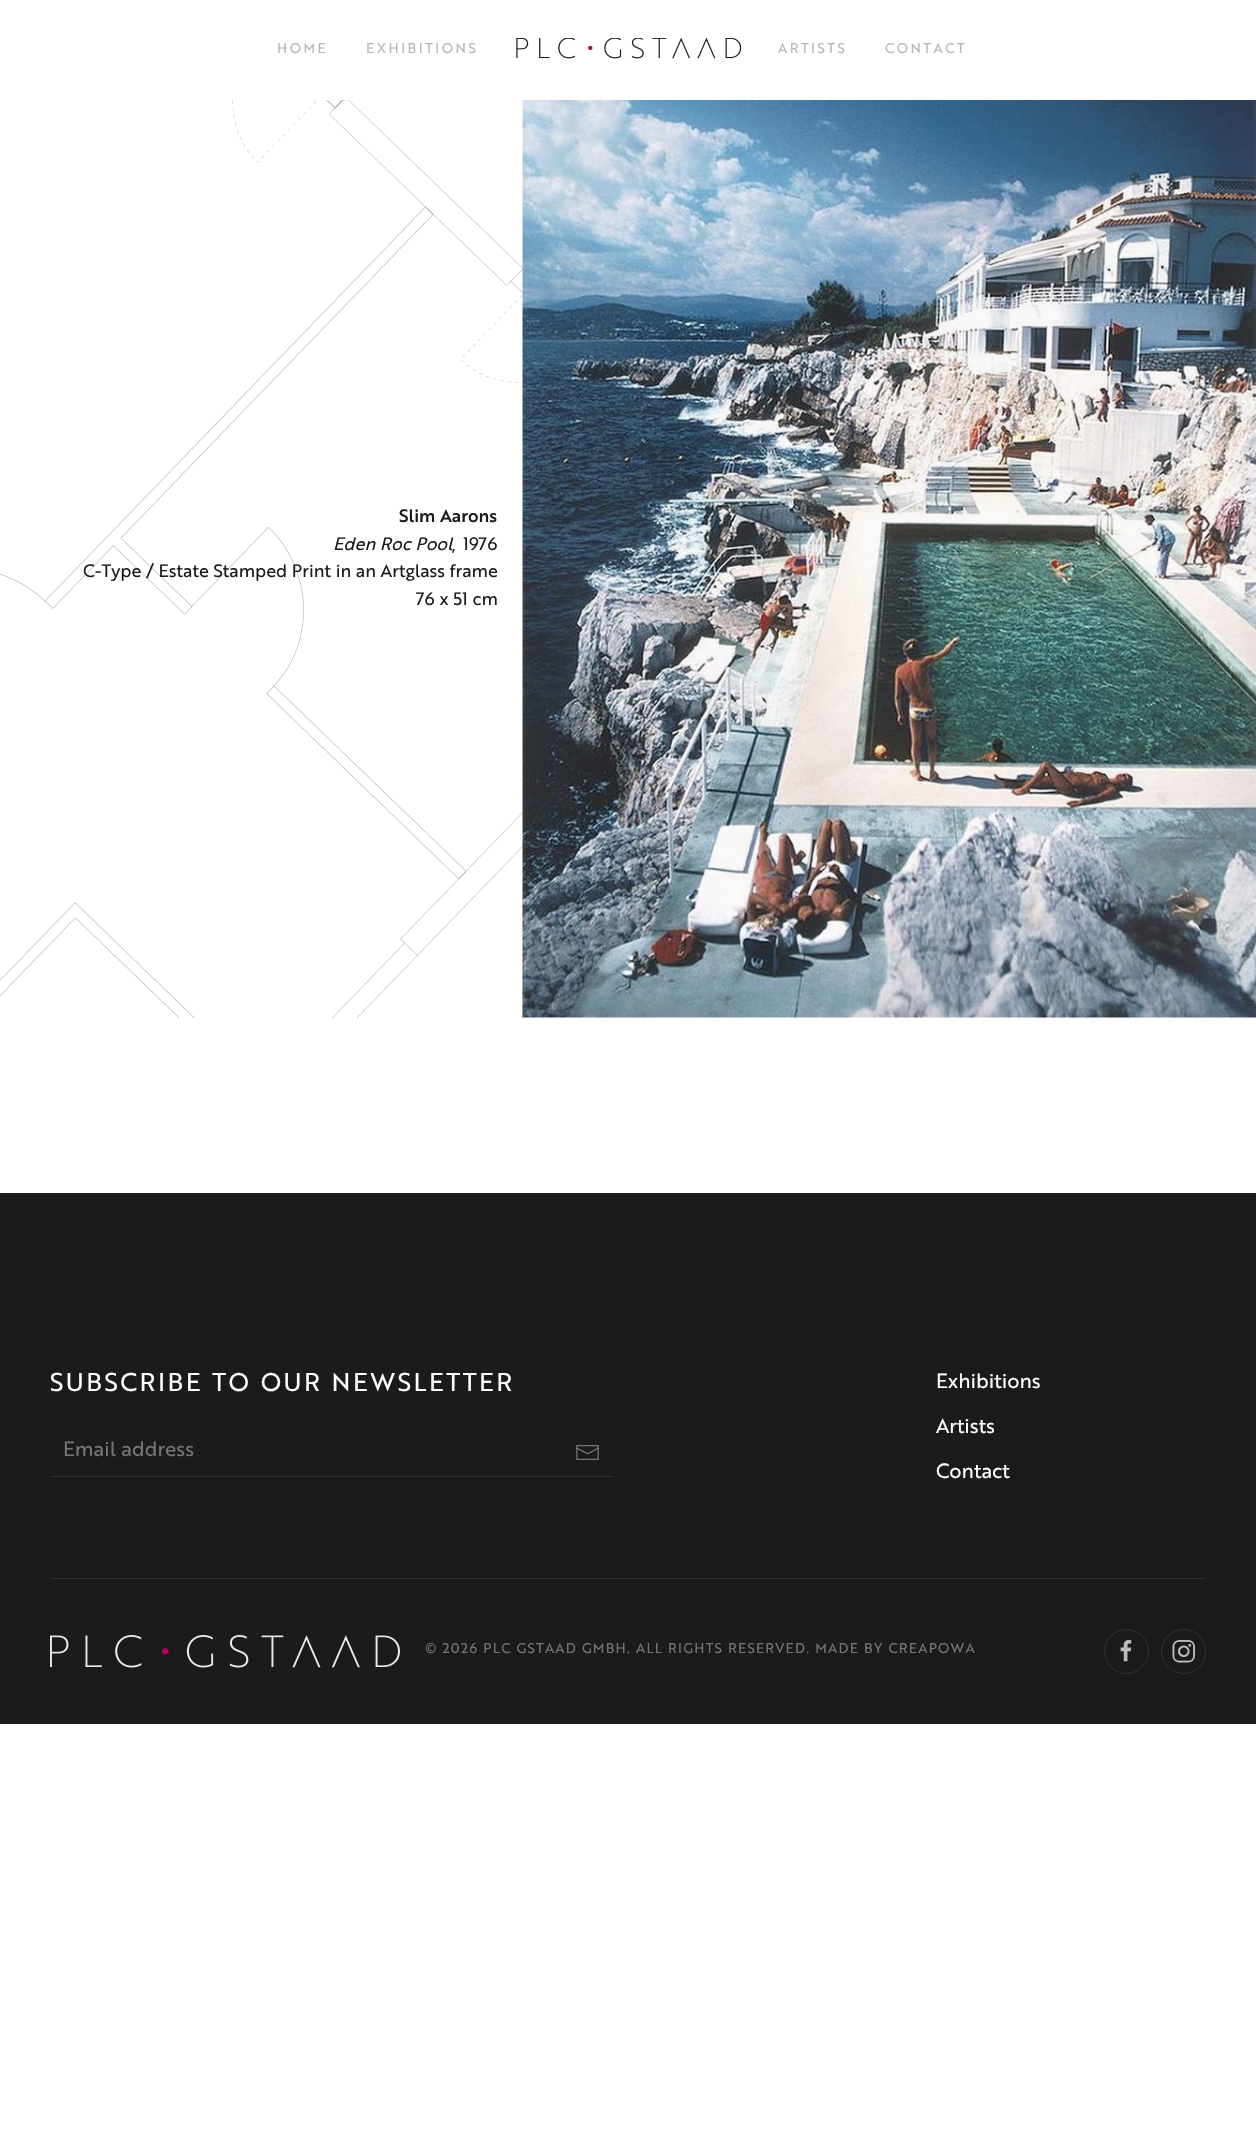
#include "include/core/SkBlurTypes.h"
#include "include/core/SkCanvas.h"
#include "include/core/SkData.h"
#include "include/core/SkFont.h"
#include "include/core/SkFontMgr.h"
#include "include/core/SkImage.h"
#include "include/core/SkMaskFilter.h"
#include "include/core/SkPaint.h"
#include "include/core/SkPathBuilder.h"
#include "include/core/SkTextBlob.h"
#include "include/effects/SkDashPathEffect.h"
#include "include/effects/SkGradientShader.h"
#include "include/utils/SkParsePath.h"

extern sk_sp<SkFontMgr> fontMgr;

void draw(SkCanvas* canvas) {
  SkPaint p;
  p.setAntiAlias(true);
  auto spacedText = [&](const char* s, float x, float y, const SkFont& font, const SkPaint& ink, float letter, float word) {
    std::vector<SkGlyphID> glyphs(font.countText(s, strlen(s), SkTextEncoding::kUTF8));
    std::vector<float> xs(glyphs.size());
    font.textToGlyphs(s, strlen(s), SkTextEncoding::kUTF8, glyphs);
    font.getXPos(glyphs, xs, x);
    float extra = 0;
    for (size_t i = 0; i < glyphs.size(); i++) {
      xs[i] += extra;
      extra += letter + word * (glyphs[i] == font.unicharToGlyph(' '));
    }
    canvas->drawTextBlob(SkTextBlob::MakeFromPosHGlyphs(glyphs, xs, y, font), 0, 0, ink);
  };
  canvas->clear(SK_ColorWHITE);
  canvas->drawImageRect(SkImages::DeferredFromEncodedData(SkData::MakeFromFileName("images/1.png")), SkRect::MakeLTRB(516, 38, 741, 59), SkSamplingOptions());
  canvas->drawImageRect(SkImages::DeferredFromEncodedData(SkData::MakeFromFileName("images/2.png")), SkRect::MakeLTRB(0, 100, 523, 1018), SkSamplingOptions());
  canvas->drawImageRect(SkImages::DeferredFromEncodedData(SkData::MakeFromFileName("images/3.png")), SkRect::MakeLTRB(522, 100, 1256, 1018), SkSamplingOptions());
  p.setColor(SkColorSetRGB(27, 27, 27));
  canvas->drawRect(SkRect::MakeLTRB(0, 1193, 1256, 1724), p);
  p.setColor(SkColorSetRGB(50, 50, 50));
  canvas->drawRect(SkRect::MakeLTRB(50, 1476, 613, 1477), p);
  canvas->drawImageRect(SkImages::DeferredFromEncodedData(SkData::MakeFromFileName("images/4.png")), SkRect::MakeLTRB(576, 1445, 599, 1460), SkSamplingOptions());
  canvas->drawRect(SkRect::MakeLTRB(50, 1578, 1206, 1579), p);
  canvas->drawImageRect(SkImages::DeferredFromEncodedData(SkData::MakeFromFileName("images/5.png")), SkRect::MakeLTRB(50, 1635, 400, 1668), SkSamplingOptions());
  p.setStyle(SkPaint::kStroke_Style);
  p.setStrokeWidth(1);
  canvas->drawCircle(1126.5f, 1651.5f, 22, p);
  canvas->drawImageRect(SkImages::DeferredFromEncodedData(SkData::MakeFromFileName("images/6.png")), SkRect::MakeLTRB(1120, 1640, 1132, 1662), SkSamplingOptions());
  canvas->drawCircle(1183.5f, 1651.5f, 22, p);
  canvas->drawImageRect(SkImages::DeferredFromEncodedData(SkData::MakeFromFileName("images/7.png")), SkRect::MakeLTRB(1172, 1640, 1195, 1663), SkSamplingOptions());
  SkFont font1(fontMgr->matchFamilyStyle("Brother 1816", SkFontStyle::Normal()), 13.75f);
  font1.setSubpixel(true);
  p.setStyle(SkPaint::kFill_Style);
  p.setColor(SkColorSetRGB(180, 181, 186));
  spacedText("HOME", 277, 53, font1, p, 2.5f, 0);
  spacedText("EXHIBITIONS", 366, 53, font1, p, 2.5f, 0);
  spacedText("ARTISTS", 778, 53, font1, p, 2.5f, 0);
  spacedText("CONTACT", 885, 53, font1, p, 2.5f, 0);
  SkFont font2(fontMgr->matchFamilyStyle("Brother 1816", SkFontStyle(500, SkFontStyle::kNormal_Width, SkFontStyle::kUpright_Slant)), 17.5f);
  font2.setSubpixel(true);
  p.setColor(SkColorSetRGB(27, 27, 27));
  canvas->drawString("Slim Aarons", 399, 522, font2, p);
  SkFont font3(fontMgr->matchFamilyStyle("Brother 1816", SkFontStyle::Italic()), 17.5f);
  font3.setSubpixel(true);
  canvas->drawString("Eden Roc Pool", 333, 550, font3, p);
  SkFont font4(fontMgr->matchFamilyStyle("Brother 1816", SkFontStyle::Normal()), 17.5f);
  font4.setSubpixel(true);
  canvas->drawString(",", 452, 550, font4, p);
  canvas->drawString("1976", 463, 550, font4, p);
  canvas->drawString("C-Type / Estate Stamped Print in an Artglass frame", 83, 577, font4, p);
  canvas->drawString("76 x 51 cm", 416, 605, font4, p);
  SkFont font5(fontMgr->matchFamilyStyle("Brother 1816", SkFontStyle::Normal()), 25);
  font5.setSubpixel(true);
  p.setColor(SK_ColorWHITE);
  spacedText("SUBSCRIBE TO OUR NEWSLETTER", 50, 1391, font5, p, 2.5f, 0);
  SkFont font6(fontMgr->matchFamilyStyle("Brother 1816", SkFontStyle::Normal()), 20);
  font6.setSubpixel(true);
  p.setColor(SkColorSetRGB(118, 118, 118));
  canvas->drawString("Email address", 63, 1456, font6, p);
  p.setColor(SK_ColorWHITE);
  canvas->drawString("Exhibitions", 936, 1388, font6, p);
  canvas->drawString("Artists", 936, 1433, font6, p);
  canvas->drawString("Contact", 936, 1478, font6, p);
  p.setColor(SkColorSetRGB(118, 118, 118));
  spacedText("© 2026 PLC GSTAAD GMBH. ALL RIGHTS RESERVED. MADE BY CREAPOWA", 425, 1653, font1, p, 1.25f, 0);
}
